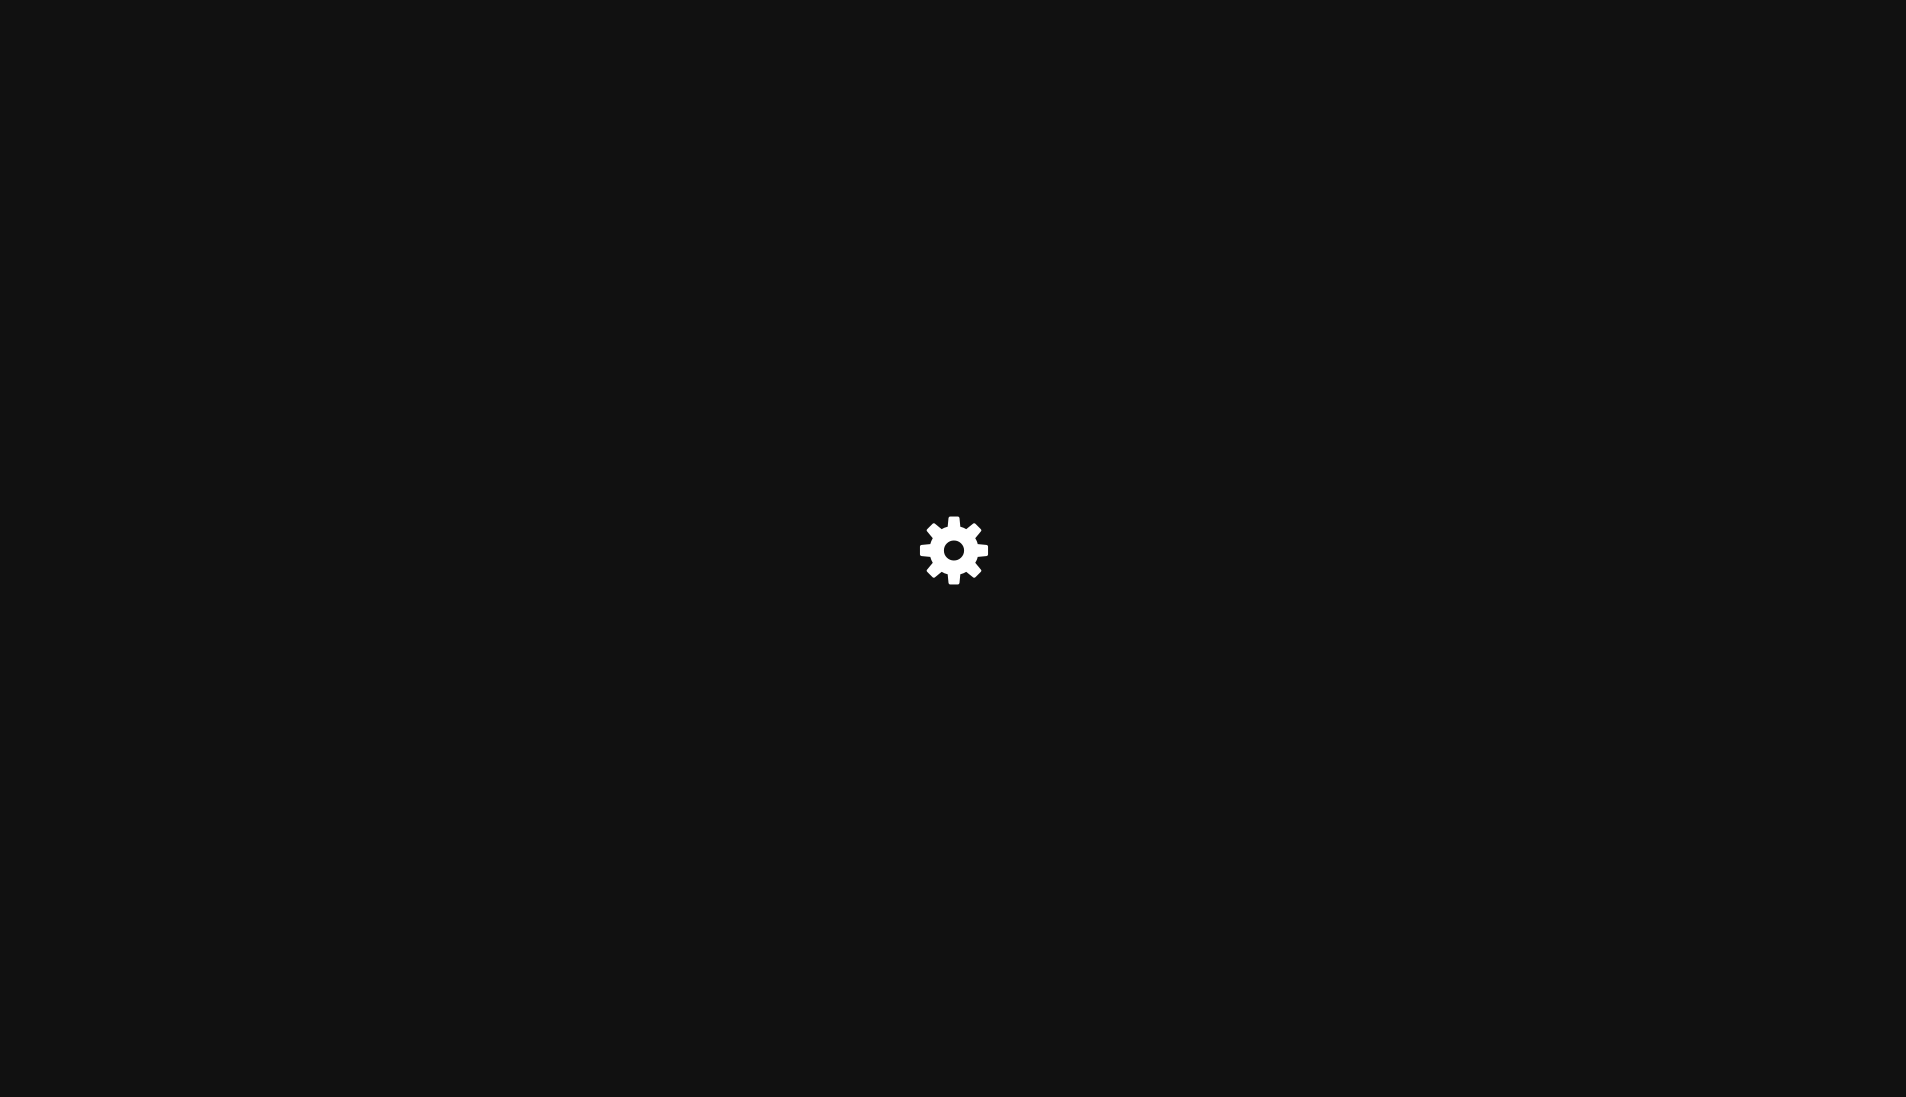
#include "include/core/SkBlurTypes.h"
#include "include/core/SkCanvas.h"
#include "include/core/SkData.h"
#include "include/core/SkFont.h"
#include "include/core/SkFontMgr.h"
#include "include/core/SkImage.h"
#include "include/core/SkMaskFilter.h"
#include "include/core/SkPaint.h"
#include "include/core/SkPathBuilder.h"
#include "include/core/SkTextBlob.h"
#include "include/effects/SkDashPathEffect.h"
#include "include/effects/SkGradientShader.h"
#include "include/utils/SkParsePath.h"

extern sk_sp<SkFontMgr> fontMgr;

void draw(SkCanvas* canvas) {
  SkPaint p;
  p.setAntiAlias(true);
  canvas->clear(SkColorSetRGB(17, 17, 17));
  canvas->drawImageRect(SkImages::DeferredFromEncodedData(SkData::MakeFromFileName("images/1.png")), SkRect::MakeLTRB(919, 516, 989, 585), SkSamplingOptions());
}
